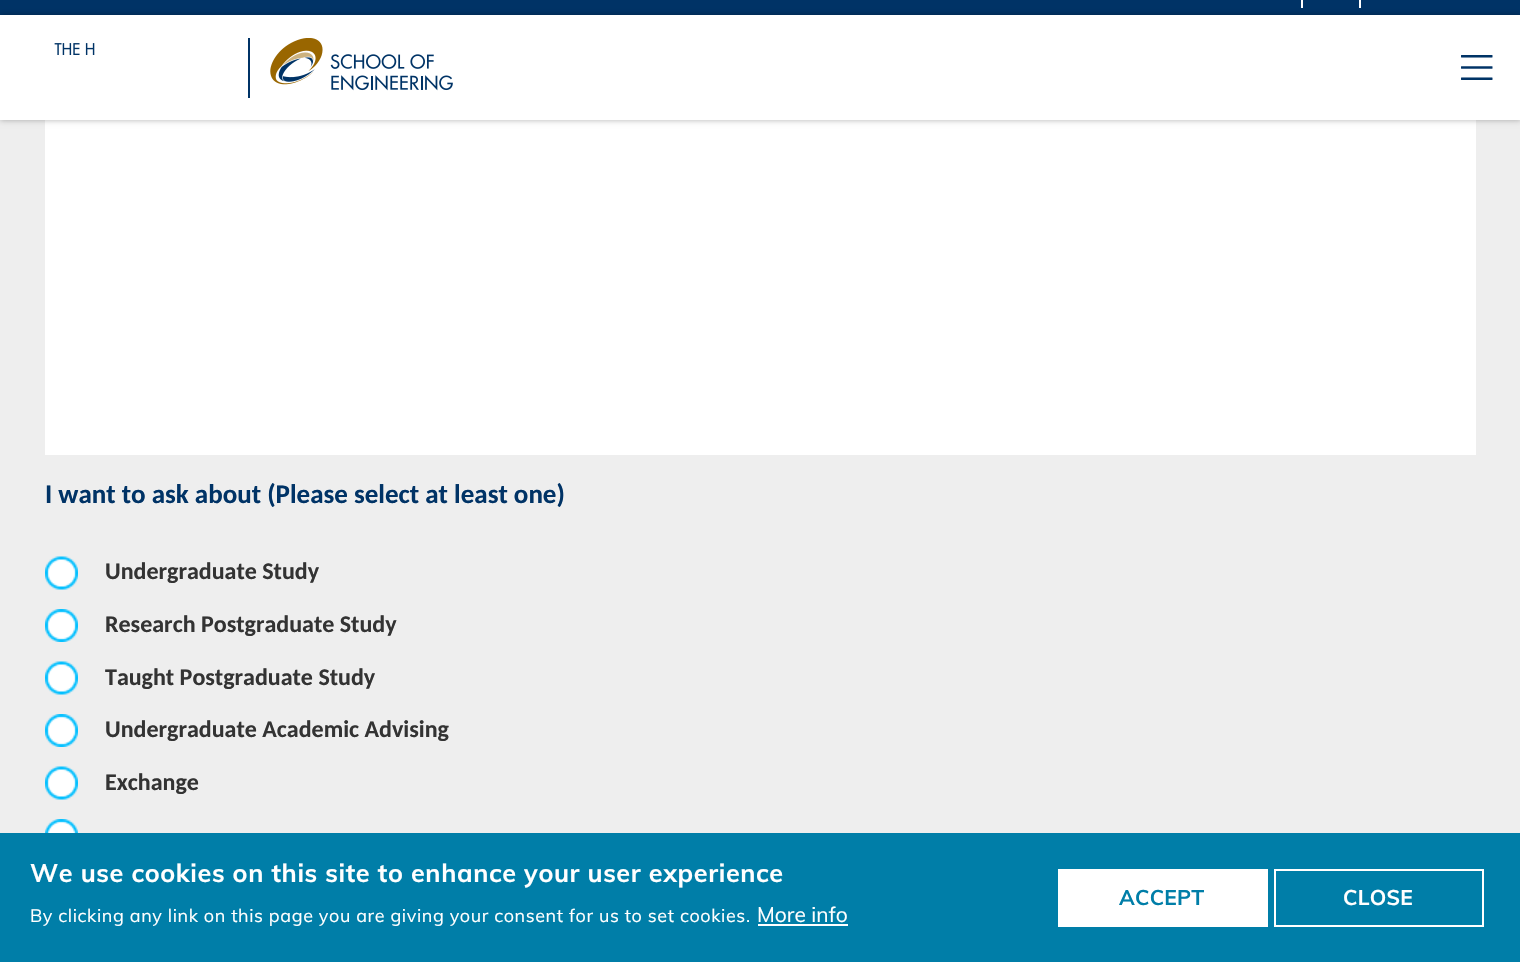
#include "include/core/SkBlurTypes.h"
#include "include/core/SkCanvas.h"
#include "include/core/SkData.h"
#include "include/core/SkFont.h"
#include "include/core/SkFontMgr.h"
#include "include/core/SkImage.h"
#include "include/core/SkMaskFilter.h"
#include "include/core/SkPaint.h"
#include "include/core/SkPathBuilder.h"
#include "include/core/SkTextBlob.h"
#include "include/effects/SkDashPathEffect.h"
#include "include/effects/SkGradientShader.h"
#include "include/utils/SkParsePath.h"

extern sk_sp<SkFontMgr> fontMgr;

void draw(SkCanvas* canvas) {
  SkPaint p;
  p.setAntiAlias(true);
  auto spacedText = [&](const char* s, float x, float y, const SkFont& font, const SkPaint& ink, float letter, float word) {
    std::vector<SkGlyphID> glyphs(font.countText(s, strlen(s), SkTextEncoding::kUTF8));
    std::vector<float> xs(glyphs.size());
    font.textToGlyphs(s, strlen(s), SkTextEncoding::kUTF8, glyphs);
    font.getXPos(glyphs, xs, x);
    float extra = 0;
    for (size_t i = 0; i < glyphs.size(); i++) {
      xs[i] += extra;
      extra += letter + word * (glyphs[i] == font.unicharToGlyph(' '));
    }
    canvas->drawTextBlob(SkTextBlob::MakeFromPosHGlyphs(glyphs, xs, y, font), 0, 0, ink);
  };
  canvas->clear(SkColorSetRGB(238, 238, 238));
  p.setColor(SK_ColorWHITE);
  canvas->drawRect(SkRect::MakeLTRB(0, 15, 1520, 120), p);
  p.setColor(SkColorSetRGB(0, 51, 102));
  canvas->drawRect(SkRect::MakeLTRB(0, 0, 1520, 15), p);
  p.setColor(SK_ColorWHITE);
  canvas->drawRect(SkRect::MakeLTRB(45, 120, 1476, 455), p);
  canvas->save();
  canvas->clipPath(SkPathBuilder(SkPathFillType::kEvenOdd).moveTo(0, 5).lineTo(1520, 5).lineTo(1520, 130).lineTo(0, 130).close().moveTo(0, 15).lineTo(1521, 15).lineTo(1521, 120).lineTo(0, 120).close().detach(), true);
  p.setColor(SkColorSetARGB(77, 0, 0, 0));
  p.setMaskFilter(SkMaskFilter::MakeBlur(kNormal_SkBlurStyle, 3));
  canvas->drawRect(SkRect::MakeLTRB(0, 15, 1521, 120), p);
  p.setMaskFilter(nullptr);
  canvas->restore();
  p.setColor(SK_ColorWHITE);
  canvas->drawRect(SkRect::MakeLTRB(1359, 0, 1361, 8), p);
  canvas->drawRect(SkRect::MakeLTRB(1301, 0, 1303, 8), p);
  p.setColor(SkColorSetRGB(0, 51, 102));
  canvas->drawRect(SkRect::MakeLTRB(248, 38, 250, 98), p);
  canvas->drawImageRect(SkImages::DeferredFromEncodedData(SkData::MakeFromFileName("images/1.png")), SkRect::MakeLTRB(54, 43, 95, 55), SkSamplingOptions());
  canvas->drawImageRect(SkImages::DeferredFromEncodedData(SkData::MakeFromFileName("images/2.png")), SkRect::MakeLTRB(270, 38, 453, 91), SkSamplingOptions());
  canvas->drawImageRect(SkImages::DeferredFromEncodedData(SkData::MakeFromFileName("images/3.png")), SkRect::MakeLTRB(1461, 55, 1493, 80), SkSamplingOptions());
  canvas->drawImageRect(SkImages::DeferredFromEncodedData(SkData::MakeFromFileName("images/4.png")), SkRect::MakeLTRB(45, 556, 78, 590), SkSamplingOptions());
  canvas->drawImageRect(SkImages::DeferredFromEncodedData(SkData::MakeFromFileName("images/5.png")), SkRect::MakeLTRB(45, 609, 78, 642), SkSamplingOptions());
  canvas->drawImageRect(SkImages::DeferredFromEncodedData(SkData::MakeFromFileName("images/4.png")), SkRect::MakeLTRB(45, 661, 78, 695), SkSamplingOptions());
  canvas->drawImageRect(SkImages::DeferredFromEncodedData(SkData::MakeFromFileName("images/5.png")), SkRect::MakeLTRB(45, 714, 78, 747), SkSamplingOptions());
  canvas->drawImageRect(SkImages::DeferredFromEncodedData(SkData::MakeFromFileName("images/4.png")), SkRect::MakeLTRB(45, 766, 78, 800), SkSamplingOptions());
  canvas->drawImageRect(SkImages::DeferredFromEncodedData(SkData::MakeFromFileName("images/6.png")), SkRect::MakeLTRB(45, 819, 78, 833), SkSamplingOptions());
  p.setColor(SkColorSetRGB(0, 126, 168));
  canvas->drawRect(SkRect::MakeLTRB(0, 833, 1520, 962), p);
  p.setColor(SK_ColorWHITE);
  canvas->drawRect(SkRect::MakeLTRB(758, 924, 848, 926), p);
  canvas->drawRect(SkRect::MakeLTRB(1058, 869, 1268, 927), p);
  p.setStyle(SkPaint::kStroke_Style);
  p.setStrokeWidth(2);
  canvas->drawRect(SkRect::MakeLTRB(1275, 870, 1483, 926), p);
  SkFont font1(fontMgr->matchFamilyStyle("Carlito", SkFontStyle::Bold()), 27);
  font1.setSubpixel(true);
  p.setStyle(SkPaint::kFill_Style);
  p.setColor(SkColorSetRGB(0, 51, 102));
  canvas->drawString("I want to ask about (Please select at least one)", 45, 503, font1, p);
  SkFont font2(fontMgr->matchFamilyStyle("Carlito", SkFontStyle::Bold()), 24);
  font2.setSubpixel(true);
  p.setColor(SkColorSetRGB(51, 51, 51));
  canvas->drawString("Undergraduate Study", 105, 579, font2, p);
  canvas->drawString("Research Postgraduate Study", 105, 632, font2, p);
  canvas->drawString("Taught Postgraduate Study", 105, 685, font2, p);
  canvas->drawString("Undergraduate Academic Advising", 105, 737, font2, p);
  canvas->drawString("Exchange", 105, 790, font2, p);
  SkFont font3(fontMgr->matchFamilyStyle("Muli", SkFontStyle::Bold()), 25.2f);
  font3.setSubpixel(true);
  p.setColor(SK_ColorWHITE);
  spacedText("We use cookies on this site to enhance your user experience", 30, 882, font3, p, 0.6f, 0);
  SkFont font4(fontMgr->matchFamilyStyle("Muli", SkFontStyle::Normal()), 18);
  font4.setSubpixel(true);
  spacedText("By clicking any link on this page you are giving your consent for us to set cookies.", 30, 922, font4, p, 0.6f, 0);
  SkFont font5(fontMgr->matchFamilyStyle("Muli", SkFontStyle::Normal()), 21);
  font5.setSubpixel(true);
  canvas->drawString("More info", 757, 922, font5, p);
  SkFont font6(fontMgr->matchFamilyStyle("Muli", SkFontStyle::Bold()), 21);
  font6.setSubpixel(true);
  p.setColor(SkColorSetRGB(0, 126, 168));
  spacedText("ACCEPT", 1119, 905, font6, p, 0.25f, 0);
  p.setColor(SK_ColorWHITE);
  spacedText("CLOSE", 1343, 905, font6, p, 0.25f, 0);
}
